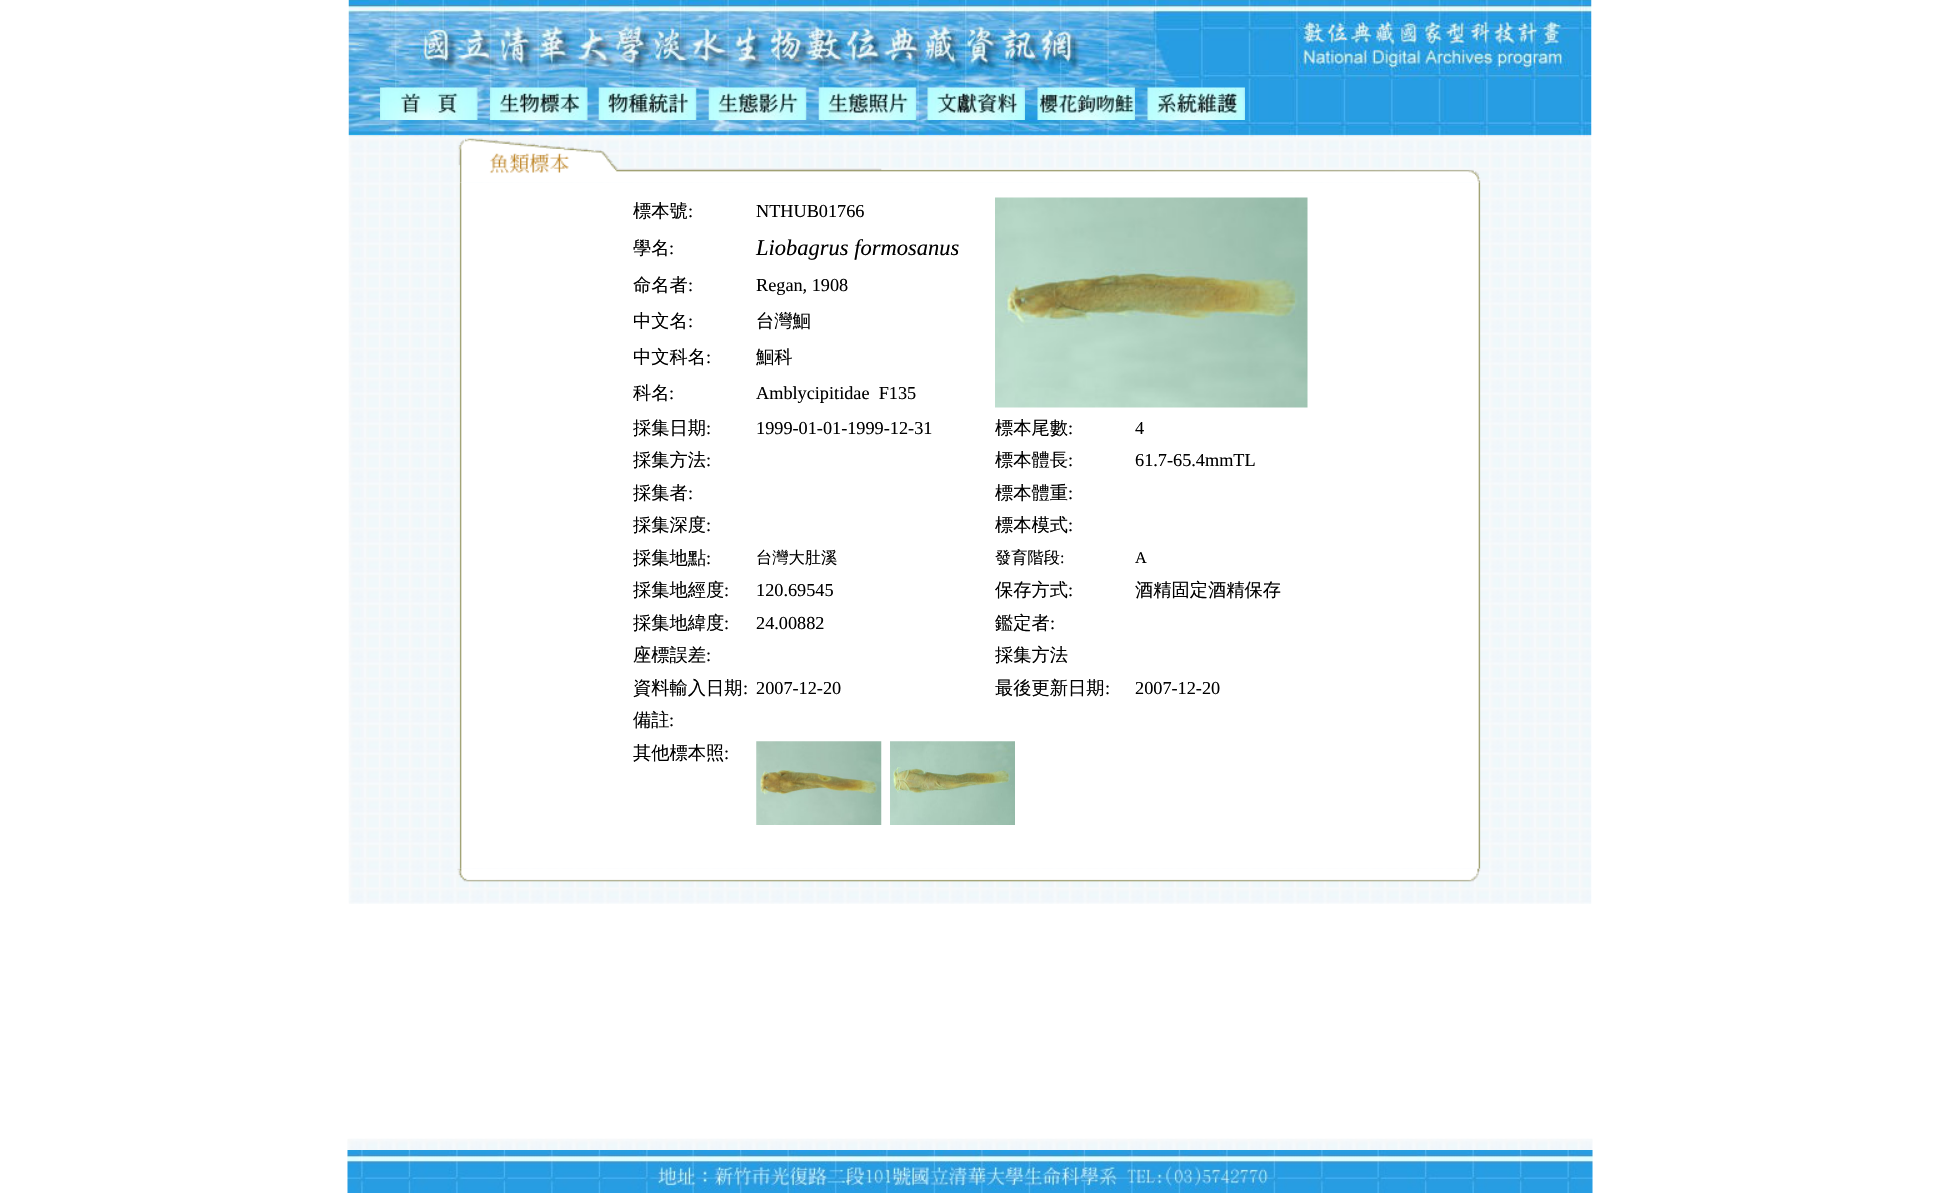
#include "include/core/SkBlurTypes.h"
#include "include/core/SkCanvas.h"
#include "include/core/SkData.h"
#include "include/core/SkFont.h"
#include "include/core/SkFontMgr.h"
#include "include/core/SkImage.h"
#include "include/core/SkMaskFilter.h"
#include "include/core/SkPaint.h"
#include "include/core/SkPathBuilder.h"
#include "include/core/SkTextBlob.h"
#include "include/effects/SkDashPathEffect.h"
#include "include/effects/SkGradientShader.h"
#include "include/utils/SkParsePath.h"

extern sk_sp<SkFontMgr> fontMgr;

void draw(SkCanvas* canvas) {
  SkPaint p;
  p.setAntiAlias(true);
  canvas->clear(SK_ColorWHITE);
  canvas->drawImageRect(SkImages::DeferredFromEncodedData(SkData::MakeFromFileName("images/1.png")), SkRect::MakeLTRB(348, 0, 1592, 138), SkSamplingOptions());
  canvas->drawImageRect(SkImages::DeferredFromEncodedData(SkData::MakeFromFileName("images/2.png")), SkRect::MakeLTRB(380, 87, 478, 120), SkSamplingOptions());
  canvas->drawImageRect(SkImages::DeferredFromEncodedData(SkData::MakeFromFileName("images/3.png")), SkRect::MakeLTRB(490, 87, 588, 120), SkSamplingOptions());
  canvas->drawImageRect(SkImages::DeferredFromEncodedData(SkData::MakeFromFileName("images/4.png")), SkRect::MakeLTRB(598, 87, 697, 120), SkSamplingOptions());
  canvas->drawImageRect(SkImages::DeferredFromEncodedData(SkData::MakeFromFileName("images/5.png")), SkRect::MakeLTRB(708, 87, 807, 120), SkSamplingOptions());
  canvas->drawImageRect(SkImages::DeferredFromEncodedData(SkData::MakeFromFileName("images/6.png")), SkRect::MakeLTRB(818, 87, 917, 120), SkSamplingOptions());
  canvas->drawImageRect(SkImages::DeferredFromEncodedData(SkData::MakeFromFileName("images/7.png")), SkRect::MakeLTRB(927, 87, 1025, 120), SkSamplingOptions());
  canvas->drawImageRect(SkImages::DeferredFromEncodedData(SkData::MakeFromFileName("images/8.png")), SkRect::MakeLTRB(1037, 87, 1135, 120), SkSamplingOptions());
  canvas->drawImageRect(SkImages::DeferredFromEncodedData(SkData::MakeFromFileName("images/9.png")), SkRect::MakeLTRB(1147, 87, 1245, 120), SkSamplingOptions());
  canvas->drawImageRect(SkImages::DeferredFromEncodedData(SkData::MakeFromFileName("images/10.png")), SkRect::MakeLTRB(348, 137, 1592, 904), SkSamplingOptions());
  canvas->drawImageRect(SkImages::DeferredFromEncodedData(SkData::MakeFromFileName("images/11.png")), SkRect::MakeLTRB(458, 138, 1481, 183), SkSamplingOptions());
  canvas->drawImageRect(SkImages::DeferredFromEncodedData(SkData::MakeFromFileName("images/12.png")), SkRect::MakeLTRB(459, 182, 1481, 869), SkSamplingOptions());
  canvas->drawImageRect(SkImages::DeferredFromEncodedData(SkData::MakeFromFileName("images/13.png")), SkRect::MakeLTRB(995, 197, 1308, 408), SkSamplingOptions());
  canvas->drawImageRect(SkImages::DeferredFromEncodedData(SkData::MakeFromFileName("images/14.png")), SkRect::MakeLTRB(756, 741, 882, 825), SkSamplingOptions());
  canvas->drawImageRect(SkImages::DeferredFromEncodedData(SkData::MakeFromFileName("images/15.png")), SkRect::MakeLTRB(890, 741, 1015, 825), SkSamplingOptions());
  canvas->drawImageRect(SkImages::DeferredFromEncodedData(SkData::MakeFromFileName("images/16.png")), SkRect::MakeLTRB(457, 868, 1481, 882), SkSamplingOptions());
  canvas->drawImageRect(SkImages::DeferredFromEncodedData(SkData::MakeFromFileName("images/17.png")), SkRect::MakeLTRB(347, 1138, 1593, 1193), SkSamplingOptions());
  canvas->drawImageRect(SkImages::DeferredFromEncodedData(SkData::MakeFromFileName("images/18.png")), SkRect::MakeLTRB(347, 1150, 1593, 1193), SkSamplingOptions());
  SkFont font1(fontMgr->matchFamilyStyle("WenQuanYi Zen Hei", SkFontStyle(500, SkFontStyle::kNormal_Width, SkFontStyle::kUpright_Slant)), 18.25f);
  font1.setSubpixel(true);
  p.setColor(SK_ColorBLACK);
  canvas->drawString("標本號", 633, 217, font1, p);
  SkFont font2(fontMgr->matchFamilyStyle("Liberation Serif", SkFontStyle::Normal()), 18.25f);
  font2.setSubpixel(true);
  canvas->drawString(":", 688, 217, font2, p);
  canvas->drawString("NTHUB01766", 756, 217, font2, p);
  canvas->drawString("學名", 633, 254, font1, p);
  canvas->drawString(":", 669, 254, font2, p);
  SkFont font3(fontMgr->matchFamilyStyle("Liberation Serif", SkFontStyle::Italic()), 22.5f);
  font3.setSubpixel(true);
  canvas->drawString("Liobagrus formosanus", 756, 255, font3, p);
  canvas->drawString("命名者", 633, 291, font1, p);
  canvas->drawString(":", 688, 291, font2, p);
  canvas->drawString("Regan, 1908", 756, 291, font2, p);
  canvas->drawString("中文名", 633, 327, font1, p);
  canvas->drawString(":", 688, 327, font2, p);
  canvas->drawString("台灣鮰", 756, 327, font1, p);
  canvas->drawString("中文科名", 633, 363, font1, p);
  canvas->drawString(":", 706, 363, font2, p);
  canvas->drawString("鮰科", 756, 363, font1, p);
  canvas->drawString("科名", 633, 399, font1, p);
  canvas->drawString(":", 669, 399, font2, p);
  canvas->drawString("Amblycipitidae  F135", 756, 399, font2, p);
  canvas->drawString("採集日期", 633, 434, font1, p);
  canvas->drawString(":", 706, 434, font2, p);
  canvas->drawString("1999-01-01-1999-12-31", 756, 434, font2, p);
  canvas->drawString("標本尾數", 995, 434, font1, p);
  canvas->drawString(":", 1068, 434, font2, p);
  canvas->drawString("4", 1135, 434, font2, p);
  canvas->drawString("採集方法", 633, 466, font1, p);
  canvas->drawString(":", 706, 466, font2, p);
  canvas->drawString("標本體長", 995, 466, font1, p);
  canvas->drawString(":", 1068, 466, font2, p);
  canvas->drawString("61.7-65.4mmTL", 1135, 466, font2, p);
  canvas->drawString("採集者", 633, 499, font1, p);
  canvas->drawString(":", 688, 499, font2, p);
  canvas->drawString("標本體重", 995, 499, font1, p);
  canvas->drawString(":", 1068, 499, font2, p);
  canvas->drawString("採集深度", 633, 531, font1, p);
  canvas->drawString(":", 706, 531, font2, p);
  canvas->drawString("標本模式", 995, 531, font1, p);
  canvas->drawString(":", 1068, 531, font2, p);
  canvas->drawString("採集地點", 633, 564, font1, p);
  canvas->drawString(":", 706, 564, font2, p);
  SkFont font4(fontMgr->matchFamilyStyle("WenQuanYi Zen Hei", SkFontStyle(500, SkFontStyle::kNormal_Width, SkFontStyle::kUpright_Slant)), 16.25f);
  font4.setSubpixel(true);
  canvas->drawString("台灣大肚溪", 756, 563, font4, p);
  canvas->drawString("發育階段", 995, 563, font4, p);
  SkFont font5(fontMgr->matchFamilyStyle("Liberation Serif", SkFontStyle::Normal()), 16.25f);
  font5.setSubpixel(true);
  canvas->drawString(":", 1060, 563, font5, p);
  canvas->drawString("A", 1135, 563, font5, p);
  canvas->drawString("採集地經度", 633, 596, font1, p);
  canvas->drawString(":", 724, 596, font2, p);
  canvas->drawString("120.69545", 756, 596, font2, p);
  canvas->drawString("保存方式", 995, 596, font1, p);
  canvas->drawString(":", 1068, 596, font2, p);
  canvas->drawString("酒精固定酒精保存", 1135, 596, font1, p);
  canvas->drawString("採集地緯度", 633, 629, font1, p);
  canvas->drawString(":", 724, 629, font2, p);
  canvas->drawString("24.00882", 756, 629, font2, p);
  canvas->drawString("鑑定者", 995, 629, font1, p);
  canvas->drawString(":", 1050, 629, font2, p);
  canvas->drawString("座標誤差", 633, 661, font1, p);
  canvas->drawString(":", 706, 661, font2, p);
  canvas->drawString("採集方法", 995, 661, font1, p);
  canvas->drawString("資料輸入日期", 633, 694, font1, p);
  canvas->drawString(":", 743, 694, font2, p);
  canvas->drawString("2007-12-20", 756, 694, font2, p);
  canvas->drawString("最後更新日期", 995, 694, font1, p);
  canvas->drawString(":", 1105, 694, font2, p);
  canvas->drawString("2007-12-20", 1135, 694, font2, p);
  canvas->drawString("備註", 633, 726, font1, p);
  canvas->drawString(":", 669, 726, font2, p);
  canvas->drawString("其他標本照", 633, 759, font1, p);
  canvas->drawString(":", 724, 759, font2, p);
}
